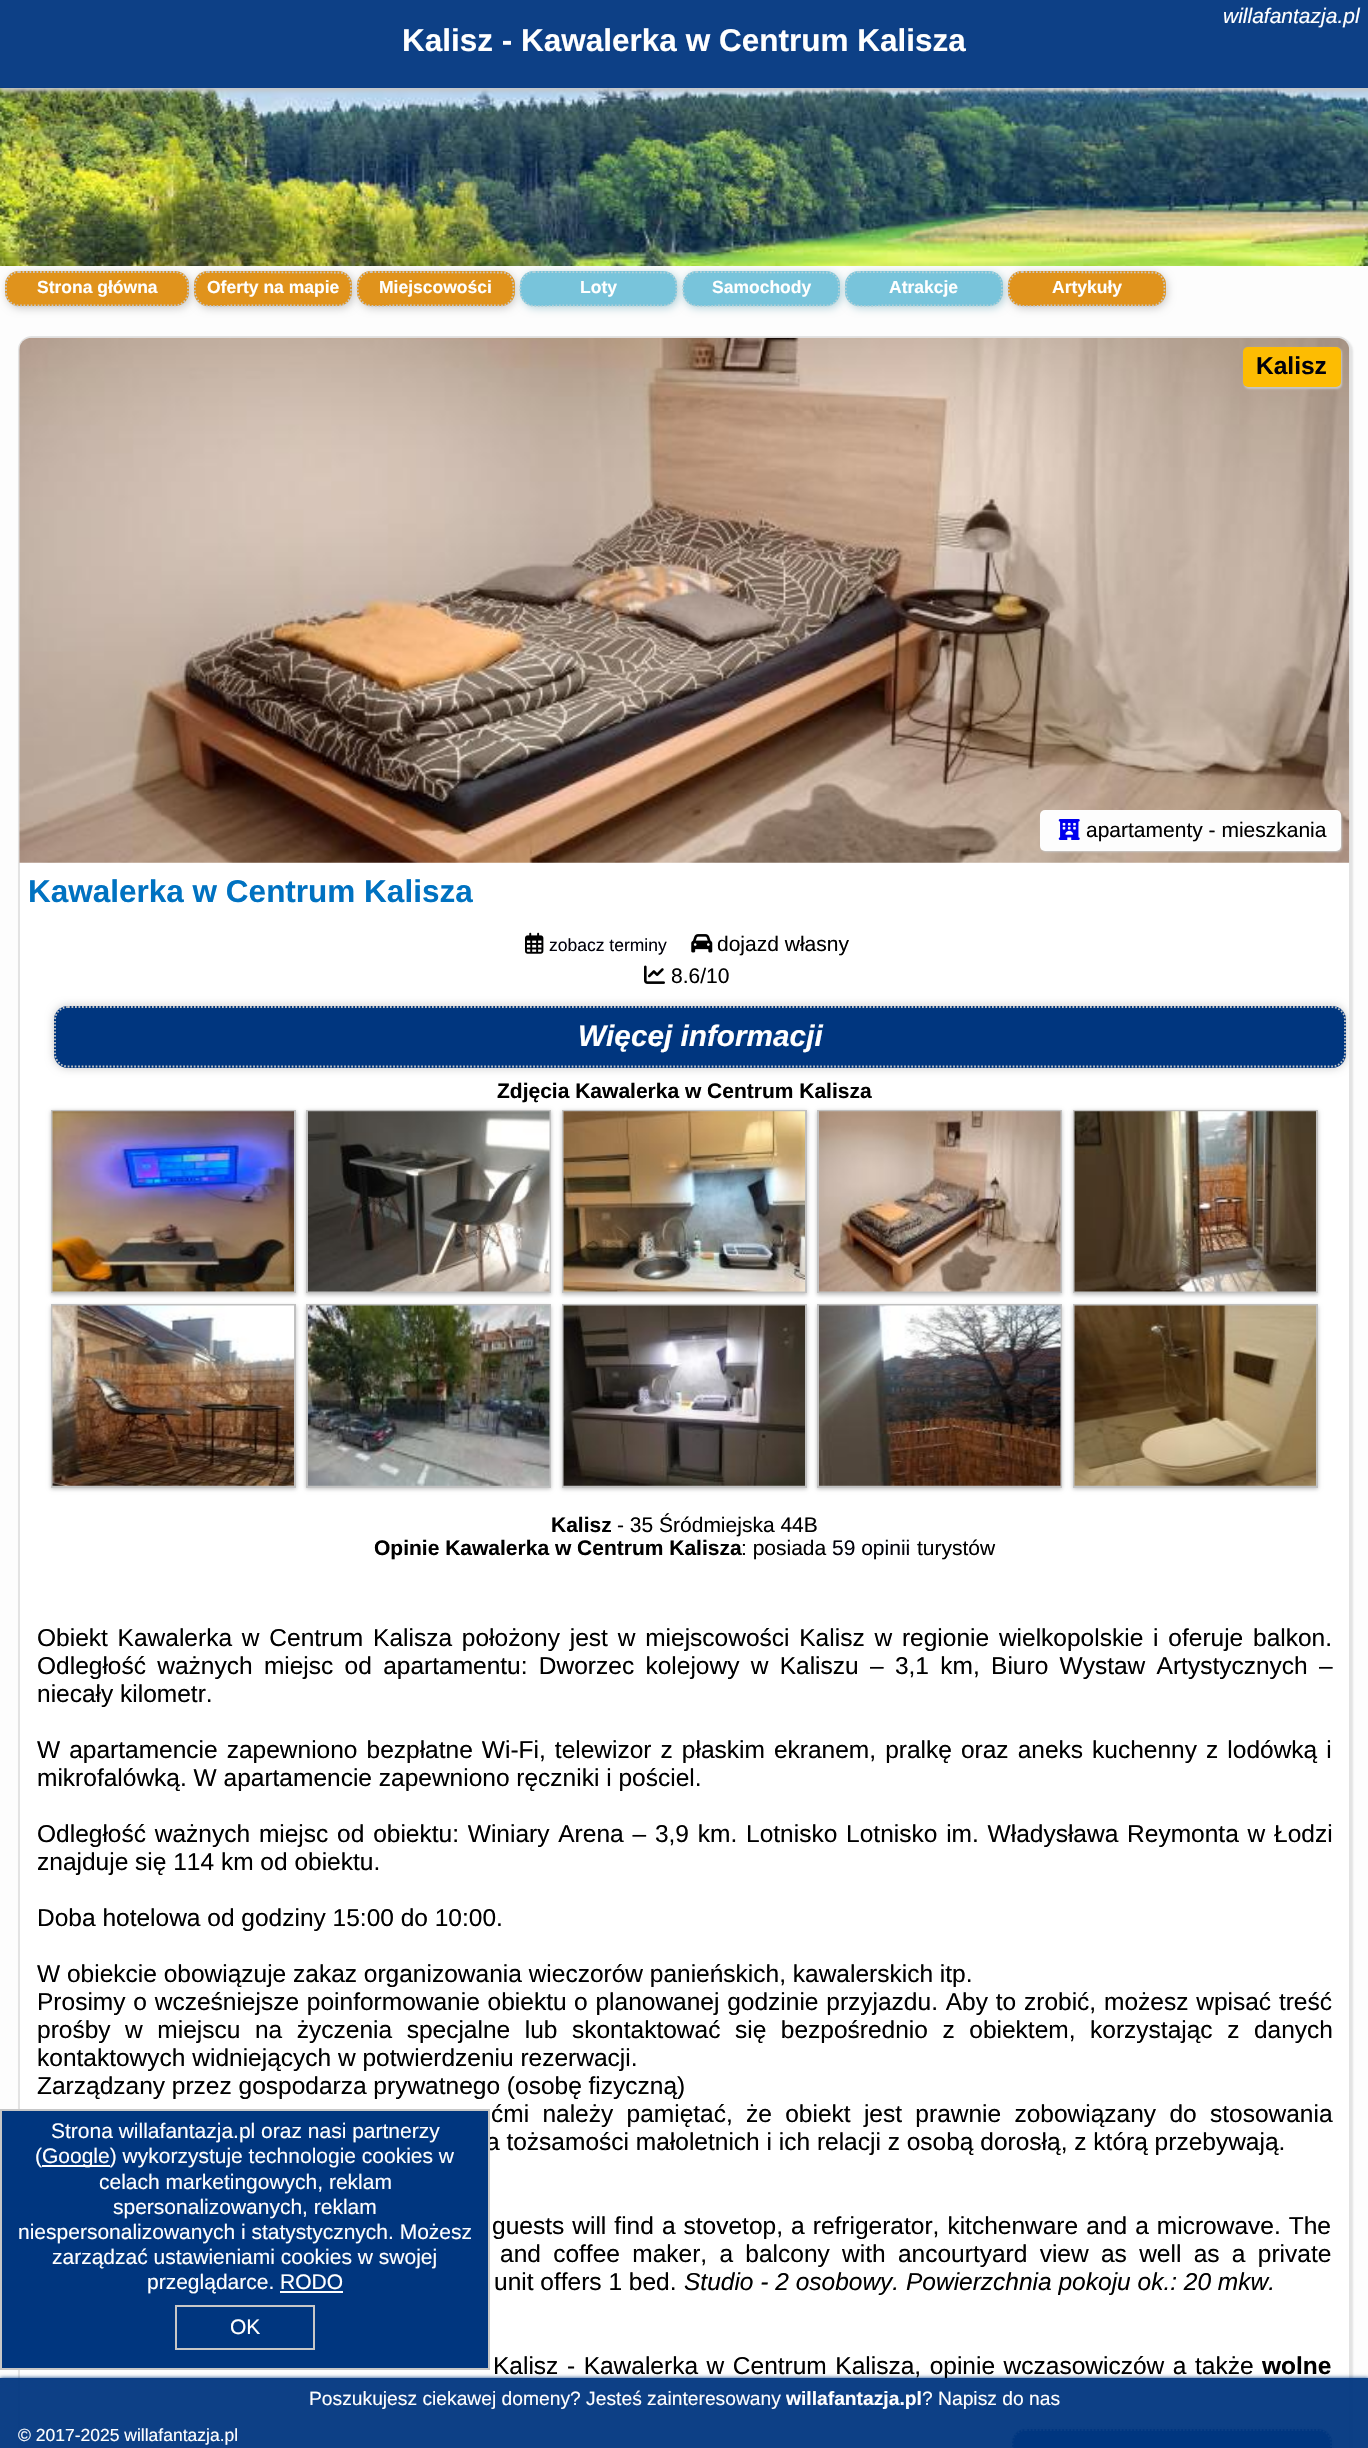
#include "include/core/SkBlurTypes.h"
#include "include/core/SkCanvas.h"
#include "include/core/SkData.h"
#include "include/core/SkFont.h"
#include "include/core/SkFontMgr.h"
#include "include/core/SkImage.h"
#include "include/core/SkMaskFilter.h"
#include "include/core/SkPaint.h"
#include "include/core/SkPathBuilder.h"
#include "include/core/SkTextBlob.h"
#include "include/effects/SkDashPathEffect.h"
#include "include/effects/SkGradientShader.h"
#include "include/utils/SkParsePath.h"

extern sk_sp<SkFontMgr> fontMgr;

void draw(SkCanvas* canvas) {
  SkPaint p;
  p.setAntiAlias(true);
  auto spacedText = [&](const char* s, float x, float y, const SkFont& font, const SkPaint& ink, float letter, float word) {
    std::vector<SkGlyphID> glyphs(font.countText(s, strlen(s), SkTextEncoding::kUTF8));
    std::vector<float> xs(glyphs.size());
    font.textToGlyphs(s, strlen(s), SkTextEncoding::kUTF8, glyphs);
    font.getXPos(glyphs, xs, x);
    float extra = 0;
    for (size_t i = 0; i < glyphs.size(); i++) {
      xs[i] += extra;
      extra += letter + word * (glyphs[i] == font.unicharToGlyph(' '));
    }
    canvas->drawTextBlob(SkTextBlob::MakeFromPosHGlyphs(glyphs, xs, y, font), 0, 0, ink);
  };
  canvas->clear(SkColorSetRGB(253, 253, 253));
  canvas->drawImageRect(SkImages::DeferredFromEncodedData(SkData::MakeFromFileName("images/1.png")), SkRect::MakeLTRB(0, 87, 1368, 266), SkSamplingOptions());
  canvas->save();
  canvas->clipPath(SkPathBuilder(SkPathFillType::kEvenOdd).moveTo(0, 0).lineTo(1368, 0).lineTo(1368, 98).lineTo(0, 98).close().moveTo(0, 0).lineTo(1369, 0).lineTo(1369, 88).lineTo(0, 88).close().detach(), true);
  p.setColor(SkColorSetRGB(199, 199, 199));
  p.setMaskFilter(SkMaskFilter::MakeBlur(kNormal_SkBlurStyle, 2));
  canvas->drawRect(SkRect::MakeLTRB(0, 4, 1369, 91), p);
  p.setMaskFilter(nullptr);
  canvas->restore();
  p.setColor(SkColorSetARGB(242, 0, 54, 127));
  canvas->drawRect(SkRect::MakeLTRB(0, 0, 1368, 88), p);
  canvas->save();
  canvas->clipRect(SkRect::MakeLTRB(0, 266, 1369, 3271));
  p.setColor(SkColorSetRGB(199, 199, 199));
  p.setMaskFilter(SkMaskFilter::MakeBlur(kNormal_SkBlurStyle, 4.5f));
  canvas->drawRoundRect(SkRect::MakeLTRB(7, 273, 191, 308), 14, 14, p);
  p.setMaskFilter(nullptr);
  canvas->restore();
  p.setColor(SkColorSetRGB(224, 147, 28));
  canvas->drawRoundRect(SkRect::MakeLTRB(5, 271, 189, 306), 14, 14, p);
  p.setStyle(SkPaint::kStroke_Style);
  p.setStrokeWidth(1.8f);
  p.setColor(SkColorSetRGB(199, 199, 199));
  p.setPathEffect(SkDashPathEffect::Make({{1.75f, 1.75f}}, 0));
  canvas->drawPath(SkPathBuilder().moveTo(19, 272).lineTo(175, 272).cubicTo(182, 272, 188, 278, 188, 285).lineTo(188, 292).cubicTo(188, 299.5f, 182, 305.5f, 175, 305.5f).lineTo(19, 305.5f).cubicTo(12, 305.5f, 6, 299.5f, 6, 292).lineTo(6, 285).cubicTo(6, 278, 12, 272, 19, 272).close().detach(), p);
  p.setPathEffect(nullptr);
  canvas->save();
  canvas->clipRect(SkRect::MakeLTRB(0, 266, 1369, 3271));
  p.setStyle(SkPaint::kFill_Style);
  p.setMaskFilter(SkMaskFilter::MakeBlur(kNormal_SkBlurStyle, 4.5f));
  canvas->drawRoundRect(SkRect::MakeLTRB(196, 273, 354, 308), 14, 14, p);
  p.setMaskFilter(nullptr);
  canvas->restore();
  p.setColor(SkColorSetRGB(224, 147, 28));
  canvas->drawRoundRect(SkRect::MakeLTRB(194, 271, 352, 306), 14, 14, p);
  p.setStyle(SkPaint::kStroke_Style);
  p.setColor(SkColorSetRGB(199, 199, 199));
  p.setPathEffect(SkDashPathEffect::Make({{1.75f, 1.75f}}, 0));
  canvas->drawPath(SkPathBuilder().moveTo(208, 272).lineTo(340.5f, 272.5f).cubicTo(349.5f, 274, 351, 281.5f, 351, 289.5f).cubicTo(351, 298, 347.5f, 305.5f, 338, 305.5f).lineTo(230, 305.5f).cubicTo(228.5f, 305.5f, 210, 307.5f, 203, 304.5f).cubicTo(190.5f, 299, 192, 272, 208, 272).close().detach(), p);
  p.setPathEffect(nullptr);
  canvas->save();
  canvas->clipRect(SkRect::MakeLTRB(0, 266, 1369, 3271));
  p.setStyle(SkPaint::kFill_Style);
  p.setMaskFilter(SkMaskFilter::MakeBlur(kNormal_SkBlurStyle, 4.5f));
  canvas->drawRoundRect(SkRect::MakeLTRB(359, 273, 516, 308), 14, 14, p);
  p.setMaskFilter(nullptr);
  canvas->restore();
  p.setColor(SkColorSetRGB(224, 147, 28));
  canvas->drawRoundRect(SkRect::MakeLTRB(357, 271, 515, 306), 14, 14, p);
  p.setStyle(SkPaint::kStroke_Style);
  p.setColor(SkColorSetRGB(199, 199, 199));
  p.setPathEffect(SkDashPathEffect::Make({{1.75f, 1.75f}}, 0));
  canvas->drawPath(SkPathBuilder().moveTo(371, 272).lineTo(503, 272.5f).cubicTo(512, 274, 513.5f, 281.5f, 513.5f, 289.5f).cubicTo(513.5f, 298, 510, 305.5f, 500.5f, 305.5f).lineTo(392.5f, 305.5f).cubicTo(391, 305.5f, 373, 307.5f, 366, 304.5f).cubicTo(353.5f, 299, 354.5f, 272, 371, 272).close().detach(), p);
  p.setPathEffect(nullptr);
  canvas->save();
  canvas->clipRect(SkRect::MakeLTRB(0, 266, 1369, 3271));
  p.setStyle(SkPaint::kFill_Style);
  p.setColor(SkColorSetRGB(178, 209, 217));
  p.setMaskFilter(SkMaskFilter::MakeBlur(kNormal_SkBlurStyle, 4.5f));
  canvas->drawRoundRect(SkRect::MakeLTRB(522, 273, 679, 308), 14, 14, p);
  p.setMaskFilter(nullptr);
  canvas->restore();
  p.setColor(SkColorSetRGB(120, 196, 219));
  canvas->drawRoundRect(SkRect::MakeLTRB(520, 271, 677, 306), 14, 14, p);
  p.setStyle(SkPaint::kStroke_Style);
  p.setColor(SkColorSetRGB(178, 209, 217));
  p.setPathEffect(SkDashPathEffect::Make({{1.75f, 1.75f}}, 0));
  canvas->drawPath(SkPathBuilder().moveTo(534, 272).lineTo(666, 272.5f).cubicTo(675, 274, 676.5f, 281.5f, 676.5f, 289.5f).cubicTo(676.5f, 298, 673, 305.5f, 663, 305.5f).lineTo(555.5f, 305.5f).cubicTo(554, 305.5f, 535.5f, 307.5f, 528.5f, 304.5f).cubicTo(516, 299, 517.5f, 272, 534, 272).close().detach(), p);
  p.setPathEffect(nullptr);
  canvas->save();
  canvas->clipRect(SkRect::MakeLTRB(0, 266, 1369, 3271));
  p.setStyle(SkPaint::kFill_Style);
  p.setMaskFilter(SkMaskFilter::MakeBlur(kNormal_SkBlurStyle, 4.5f));
  canvas->drawRoundRect(SkRect::MakeLTRB(684, 273, 842, 308), 14, 14, p);
  p.setMaskFilter(nullptr);
  canvas->restore();
  p.setColor(SkColorSetRGB(120, 196, 219));
  canvas->drawRoundRect(SkRect::MakeLTRB(683, 271, 840, 306), 14, 14, p);
  p.setStyle(SkPaint::kStroke_Style);
  p.setColor(SkColorSetRGB(178, 209, 217));
  p.setPathEffect(SkDashPathEffect::Make({{1.75f, 1.75f}}, 0));
  canvas->drawPath(SkPathBuilder().moveTo(696.5f, 272).lineTo(828.5f, 272.5f).cubicTo(837.5f, 274, 839, 281.5f, 839, 289.5f).cubicTo(839, 298, 835.5f, 305.5f, 826, 305.5f).lineTo(718, 305.5f).cubicTo(716.5f, 305.5f, 698.5f, 307.5f, 691.5f, 304.5f).cubicTo(679, 299, 680, 272, 696.5f, 272).close().detach(), p);
  p.setPathEffect(nullptr);
  canvas->save();
  canvas->clipRect(SkRect::MakeLTRB(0, 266, 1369, 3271));
  p.setStyle(SkPaint::kFill_Style);
  p.setMaskFilter(SkMaskFilter::MakeBlur(kNormal_SkBlurStyle, 4.5f));
  canvas->drawRoundRect(SkRect::MakeLTRB(847, 273, 1005, 308), 14, 14, p);
  p.setMaskFilter(nullptr);
  canvas->restore();
  p.setColor(SkColorSetRGB(120, 196, 219));
  canvas->drawRoundRect(SkRect::MakeLTRB(845, 271, 1003, 306), 14, 14, p);
  p.setStyle(SkPaint::kStroke_Style);
  p.setColor(SkColorSetRGB(178, 209, 217));
  p.setPathEffect(SkDashPathEffect::Make({{1.75f, 1.75f}}, 0));
  canvas->drawPath(SkPathBuilder().moveTo(859, 272).lineTo(991.5f, 272.5f).cubicTo(1000.5f, 274, 1002, 281.5f, 1002, 289.5f).cubicTo(1002, 298, 998.5f, 305.5f, 989, 305.5f).lineTo(881, 305.5f).cubicTo(879.5f, 305.5f, 861, 307.5f, 854, 304.5f).cubicTo(841.5f, 299, 843, 272, 859, 272).close().detach(), p);
  p.setPathEffect(nullptr);
  canvas->save();
  canvas->clipRect(SkRect::MakeLTRB(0, 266, 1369, 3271));
  p.setStyle(SkPaint::kFill_Style);
  p.setColor(SkColorSetRGB(199, 199, 199));
  p.setMaskFilter(SkMaskFilter::MakeBlur(kNormal_SkBlurStyle, 4.5f));
  canvas->drawRoundRect(SkRect::MakeLTRB(1010, 273, 1167, 308), 14, 14, p);
  p.setMaskFilter(nullptr);
  canvas->restore();
  p.setColor(SkColorSetRGB(224, 147, 28));
  canvas->drawRoundRect(SkRect::MakeLTRB(1008, 271, 1166, 306), 14, 14, p);
  p.setStyle(SkPaint::kStroke_Style);
  p.setColor(SkColorSetRGB(199, 199, 199));
  p.setPathEffect(SkDashPathEffect::Make({{1.75f, 1.75f}}, 0));
  canvas->drawPath(SkPathBuilder().moveTo(1022, 272).lineTo(1154, 272.5f).cubicTo(1163, 274, 1164.5f, 281.5f, 1164.5f, 289.5f).cubicTo(1164.5f, 298, 1161, 305.5f, 1151.5f, 305.5f).lineTo(1043.5f, 305.5f).cubicTo(1042, 305.5f, 1024, 307.5f, 1017, 304.5f).cubicTo(1004.5f, 299, 1005.5f, 272, 1022, 272).close().detach(), p);
  p.setPathEffect(nullptr);
  p.setStyle(SkPaint::kFill_Style);
  p.setColor(SkColorSetARGB(128, 199, 199, 199));
  p.setMaskFilter(SkMaskFilter::MakeBlur(kNormal_SkBlurStyle, 1));
  canvas->drawRoundRect(SkRect::MakeLTRB(19, 338, 1353, 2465), 14, 14, p);
  p.setMaskFilter(nullptr);
  p.setColor(SK_ColorWHITE);
  canvas->drawRoundRect(SkRect::MakeLTRB(18, 336, 1351, 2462), 14, 14, p);
  p.setStyle(SkPaint::kStroke_Style);
  p.setStrokeWidth(2);
  p.setColor(SkColorSetARGB(128, 199, 199, 199));
  canvas->drawRoundRect(SkRect::MakeLTRB(19, 337, 1350, 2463), 13, 13, p);
  canvas->drawImageRect(SkImages::DeferredFromEncodedData(SkData::MakeFromFileName("images/2.png")), SkRect::MakeLTRB(19, 337, 1350, 863), SkSamplingOptions());
  p.setStyle(SkPaint::kFill_Style);
  p.setColor(SkColorSetRGB(199, 199, 199));
  p.setMaskFilter(SkMaskFilter::MakeBlur(kNormal_SkBlurStyle, 1));
  canvas->drawRoundRect(SkRect::MakeLTRB(1244, 348, 1342, 389), 5, 5, p);
  p.setMaskFilter(nullptr);
  p.setColor(SkColorSetRGB(253, 188, 2));
  canvas->drawRoundRect(SkRect::MakeLTRB(1243, 347, 1341, 387), 5, 5, p);
  p.setColor(SkColorSetRGB(199, 199, 199));
  p.setMaskFilter(SkMaskFilter::MakeBlur(kNormal_SkBlurStyle, 1));
  canvas->drawRoundRect(SkRect::MakeLTRB(1041, 812, 1342, 852), 5, 5, p);
  p.setMaskFilter(nullptr);
  p.setColor(SkColorSetRGB(253, 253, 253));
  canvas->drawRoundRect(SkRect::MakeLTRB(1040, 810, 1341, 851), 5, 5, p);
  canvas->drawImageRect(SkImages::DeferredFromEncodedData(SkData::MakeFromFileName("images/3.png")), SkRect::MakeLTRB(1058, 819, 1080, 840), SkSamplingOptions());
  canvas->drawImageRect(SkImages::DeferredFromEncodedData(SkData::MakeFromFileName("images/4.png")), SkRect::MakeLTRB(525, 932, 544, 954), SkSamplingOptions());
  canvas->drawImageRect(SkImages::DeferredFromEncodedData(SkData::MakeFromFileName("images/5.png")), SkRect::MakeLTRB(691, 934, 713, 953), SkSamplingOptions());
  canvas->drawImageRect(SkImages::DeferredFromEncodedData(SkData::MakeFromFileName("images/6.png")), SkRect::MakeLTRB(644, 965, 665, 984), SkSamplingOptions());
  canvas->save();
  canvas->clipPath(SkPathBuilder().moveTo(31, 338).lineTo(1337, 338).cubicTo(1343.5f, 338, 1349, 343.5f, 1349, 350).lineTo(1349, 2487).cubicTo(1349, 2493.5f, 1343.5f, 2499, 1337, 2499).lineTo(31, 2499).cubicTo(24.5f, 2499, 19, 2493.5f, 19, 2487).lineTo(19, 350).cubicTo(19, 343.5f, 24.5f, 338, 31, 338).close().detach(), true);
  p.setColor(SkColorSetRGB(199, 199, 199));
  p.setMaskFilter(SkMaskFilter::MakeBlur(kNormal_SkBlurStyle, 4.5f));
  canvas->drawRoundRect(SkRect::MakeLTRB(54, 1006, 1346, 1068), 14, 14, p);
  p.setMaskFilter(nullptr);
  canvas->restore();
  p.setColor(SkColorSetRGB(0, 54, 127));
  canvas->drawRoundRect(SkRect::MakeLTRB(54, 1006, 1346, 1068), 14, 14, p);
  p.setStyle(SkPaint::kStroke_Style);
  p.setStrokeWidth(1.8f);
  p.setColor(SkColorSetRGB(199, 199, 199));
  p.setPathEffect(SkDashPathEffect::Make({{1.75f, 1.75f}}, 0));
  canvas->drawPath(SkPathBuilder().moveTo(68, 1007).lineTo(1332, 1007).cubicTo(1339, 1007, 1345, 1013, 1345, 1020).lineTo(1345, 1053.5f).cubicTo(1345, 1060.5f, 1339, 1066.5f, 1332, 1066.5f).lineTo(68, 1066.5f).cubicTo(61, 1066.5f, 55, 1060.5f, 55, 1053.5f).lineTo(55, 1020).cubicTo(55, 1013, 61, 1007, 68, 1007).close().detach(), p);
  p.setPathEffect(nullptr);
  p.setStyle(SkPaint::kFill_Style);
  p.setColor(SkColorSetRGB(192, 192, 192));
  p.setMaskFilter(SkMaskFilter::MakeBlur(kNormal_SkBlurStyle, 2));
  canvas->drawRect(SkRect::MakeLTRB(51, 1111, 296, 1295), p);
  p.setMaskFilter(nullptr);
  p.setStyle(SkPaint::kStroke_Style);
  p.setStrokeWidth(2);
  canvas->drawRect(SkRect::MakeLTRB(52, 1111, 295, 1292), p);
  canvas->drawImageRect(SkImages::DeferredFromEncodedData(SkData::MakeFromFileName("images/7.png")), SkRect::MakeLTRB(52, 1111, 294, 1292), SkSamplingOptions());
  p.setStyle(SkPaint::kFill_Style);
  p.setMaskFilter(SkMaskFilter::MakeBlur(kNormal_SkBlurStyle, 2));
  canvas->drawRect(SkRect::MakeLTRB(306, 1111, 551, 1295), p);
  p.setMaskFilter(nullptr);
  p.setStyle(SkPaint::kStroke_Style);
  canvas->drawRect(SkRect::MakeLTRB(307, 1111, 550, 1292), p);
  canvas->drawImageRect(SkImages::DeferredFromEncodedData(SkData::MakeFromFileName("images/8.png")), SkRect::MakeLTRB(308, 1111, 550, 1292), SkSamplingOptions());
  p.setStyle(SkPaint::kFill_Style);
  p.setMaskFilter(SkMaskFilter::MakeBlur(kNormal_SkBlurStyle, 2));
  canvas->drawRect(SkRect::MakeLTRB(562, 1111, 807, 1295), p);
  p.setMaskFilter(nullptr);
  p.setStyle(SkPaint::kStroke_Style);
  canvas->drawRect(SkRect::MakeLTRB(563, 1111, 806, 1292), p);
  canvas->drawImageRect(SkImages::DeferredFromEncodedData(SkData::MakeFromFileName("images/9.png")), SkRect::MakeLTRB(563, 1111, 805, 1292), SkSamplingOptions());
  p.setStyle(SkPaint::kFill_Style);
  p.setMaskFilter(SkMaskFilter::MakeBlur(kNormal_SkBlurStyle, 2));
  canvas->drawRect(SkRect::MakeLTRB(817, 1111, 1062, 1295), p);
  p.setMaskFilter(nullptr);
  p.setStyle(SkPaint::kStroke_Style);
  canvas->drawRect(SkRect::MakeLTRB(818, 1111, 1061, 1292), p);
  canvas->drawImageRect(SkImages::DeferredFromEncodedData(SkData::MakeFromFileName("images/10.png")), SkRect::MakeLTRB(819, 1111, 1061, 1292), SkSamplingOptions());
  p.setStyle(SkPaint::kFill_Style);
  p.setMaskFilter(SkMaskFilter::MakeBlur(kNormal_SkBlurStyle, 2));
  canvas->drawRect(SkRect::MakeLTRB(1073, 1111, 1318, 1295), p);
  p.setMaskFilter(nullptr);
  p.setStyle(SkPaint::kStroke_Style);
  canvas->drawRect(SkRect::MakeLTRB(1074, 1111, 1317, 1292), p);
  canvas->drawImageRect(SkImages::DeferredFromEncodedData(SkData::MakeFromFileName("images/11.png")), SkRect::MakeLTRB(1074, 1111, 1316, 1292), SkSamplingOptions());
  p.setStyle(SkPaint::kFill_Style);
  p.setMaskFilter(SkMaskFilter::MakeBlur(kNormal_SkBlurStyle, 2));
  canvas->drawRect(SkRect::MakeLTRB(51, 1306, 296, 1489), p);
  p.setMaskFilter(nullptr);
  p.setStyle(SkPaint::kStroke_Style);
  canvas->drawRect(SkRect::MakeLTRB(52, 1305, 295, 1487), p);
  canvas->drawImageRect(SkImages::DeferredFromEncodedData(SkData::MakeFromFileName("images/12.png")), SkRect::MakeLTRB(52, 1305, 294, 1486), SkSamplingOptions());
  p.setStyle(SkPaint::kFill_Style);
  p.setMaskFilter(SkMaskFilter::MakeBlur(kNormal_SkBlurStyle, 2));
  canvas->drawRect(SkRect::MakeLTRB(306, 1306, 551, 1489), p);
  p.setMaskFilter(nullptr);
  p.setStyle(SkPaint::kStroke_Style);
  canvas->drawRect(SkRect::MakeLTRB(307, 1305, 550, 1487), p);
  canvas->drawImageRect(SkImages::DeferredFromEncodedData(SkData::MakeFromFileName("images/13.png")), SkRect::MakeLTRB(308, 1305, 550, 1486), SkSamplingOptions());
  p.setStyle(SkPaint::kFill_Style);
  p.setMaskFilter(SkMaskFilter::MakeBlur(kNormal_SkBlurStyle, 2));
  canvas->drawRect(SkRect::MakeLTRB(562, 1306, 807, 1489), p);
  p.setMaskFilter(nullptr);
  p.setStyle(SkPaint::kStroke_Style);
  canvas->drawRect(SkRect::MakeLTRB(563, 1305, 806, 1487), p);
  canvas->drawImageRect(SkImages::DeferredFromEncodedData(SkData::MakeFromFileName("images/14.png")), SkRect::MakeLTRB(563, 1305, 805, 1486), SkSamplingOptions());
  p.setStyle(SkPaint::kFill_Style);
  p.setMaskFilter(SkMaskFilter::MakeBlur(kNormal_SkBlurStyle, 2));
  canvas->drawRect(SkRect::MakeLTRB(817, 1306, 1062, 1489), p);
  p.setMaskFilter(nullptr);
  p.setStyle(SkPaint::kStroke_Style);
  canvas->drawRect(SkRect::MakeLTRB(818, 1305, 1061, 1487), p);
  canvas->drawImageRect(SkImages::DeferredFromEncodedData(SkData::MakeFromFileName("images/15.png")), SkRect::MakeLTRB(819, 1305, 1061, 1486), SkSamplingOptions());
  p.setStyle(SkPaint::kFill_Style);
  p.setMaskFilter(SkMaskFilter::MakeBlur(kNormal_SkBlurStyle, 2));
  canvas->drawRect(SkRect::MakeLTRB(1073, 1306, 1318, 1489), p);
  p.setMaskFilter(nullptr);
  p.setStyle(SkPaint::kStroke_Style);
  canvas->drawRect(SkRect::MakeLTRB(1074, 1305, 1317, 1487), p);
  canvas->drawImageRect(SkImages::DeferredFromEncodedData(SkData::MakeFromFileName("images/16.png")), SkRect::MakeLTRB(1074, 1305, 1316, 1486), SkSamplingOptions());
  p.setStyle(SkPaint::kFill_Style);
  p.setColor(SkColorSetRGB(199, 199, 199));
  p.setMaskFilter(SkMaskFilter::MakeBlur(kNormal_SkBlurStyle, 4.5f));
  canvas->drawRoundRect(SkRect::MakeLTRB(1012, 2429, 1332, 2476), 14, 14, p);
  p.setMaskFilter(nullptr);
  p.setColor(SkColorSetRGB(0, 54, 127));
  canvas->drawRoundRect(SkRect::MakeLTRB(1012, 2429, 1332, 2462), 14, 14, p);
  p.setStyle(SkPaint::kStroke_Style);
  p.setStrokeWidth(1.8f);
  p.setColor(SkColorSetRGB(199, 199, 199));
  p.setPathEffect(SkDashPathEffect::Make({{1.75f, 1.75f}}, 0));
  canvas->drawPath(SkPathBuilder().moveTo(1025.5f, 2430).lineTo(1318, 2430).cubicTo(1325, 2430, 1331, 2436, 1331, 2443).lineTo(1331, 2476).cubicTo(1331, 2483.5f, 1325, 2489.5f, 1318, 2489.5f).lineTo(1025.5f, 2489.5f).cubicTo(1018.5f, 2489.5f, 1012.5f, 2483.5f, 1012.5f, 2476).lineTo(1012.5f, 2443).cubicTo(1012.5f, 2436, 1018.5f, 2430, 1025.5f, 2430).close().detach(), p);
  p.setPathEffect(nullptr);
  canvas->save();
  canvas->clipPath(SkPathBuilder(SkPathFillType::kEvenOdd).moveTo(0, 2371).lineTo(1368, 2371).lineTo(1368, 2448).lineTo(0, 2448).close().moveTo(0, 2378).lineTo(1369, 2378).lineTo(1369, 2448).lineTo(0, 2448).close().detach(), true);
  p.setStyle(SkPaint::kFill_Style);
  p.setColor(SkColorSetRGB(0, 54, 127));
  p.setMaskFilter(SkMaskFilter::MakeBlur(kNormal_SkBlurStyle, 2));
  canvas->drawRect(SkRect::MakeLTRB(0, 2378, 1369, 2448), p);
  p.setMaskFilter(nullptr);
  canvas->restore();
  SkFont font1(fontMgr->matchFamilyStyle("Liberation Sans", SkFontStyle::Italic()), 21);
  font1.setSubpixel(true);
  p.setColor(SK_ColorWHITE);
  canvas->drawString("willafantazja.pl", 1223, 23, font1, p);
  SkFont font2(fontMgr->matchFamilyStyle("Liberation Sans", SkFontStyle::Bold()), 31.5f);
  font2.setSubpixel(true);
  canvas->drawString("Kalisz - Kawalerka w Centrum Kalisza", 402, 51, font2, p);
  SkFont font3(fontMgr->matchFamilyStyle("Liberation Sans", SkFontStyle::Bold()), 17.5f);
  font3.setSubpixel(true);
  canvas->drawString("Strona główna", 37, 293, font3, p);
  canvas->drawString("Oferty na mapie", 207, 293, font3, p);
  canvas->drawString("Miejscowości", 379, 293, font3, p);
  canvas->drawString("Loty", 580, 293, font3, p);
  canvas->drawString("Samochody", 712, 293, font3, p);
  canvas->drawString("Atrakcje", 889, 293, font3, p);
  canvas->drawString("Artykuły", 1052, 293, font3, p);
  SkFont font4(fontMgr->matchFamilyStyle("Liberation Sans", SkFontStyle::Bold()), 24.5f);
  font4.setSubpixel(true);
  p.setColor(SkColorSetRGB(1, 1, 11));
  canvas->drawString("Kalisz", 1256, 374, font4, p);
  SkFont font5(fontMgr->matchFamilyStyle("Liberation Sans", SkFontStyle::Normal()), 21);
  font5.setSubpixel(true);
  p.setColor(SK_ColorBLACK);
  canvas->drawString("apartamenty - mieszkania", 1086, 837, font5, p);
  p.setColor(SkColorSetRGB(0, 114, 193));
  canvas->drawString("Kawalerka w Centrum Kalisza", 28, 902, font2, p);
  SkFont font6(fontMgr->matchFamilyStyle("Liberation Sans", SkFontStyle::Normal()), 17.5f);
  font6.setSubpixel(true);
  p.setColor(SkColorSetRGB(1, 1, 11));
  canvas->drawString("zobacz terminy", 549, 951, font6, p);
  p.setColor(SK_ColorBLACK);
  canvas->drawString("dojazd własny", 717, 951, font5, p);
  canvas->drawString("8.6/10", 671, 983, font5, p);
  SkFont font7(fontMgr->matchFamilyStyle("Liberation Sans", SkFontStyle::BoldItalic()), 29.75f);
  font7.setSubpixel(true);
  p.setColor(SK_ColorWHITE);
  canvas->drawString("Więcej informacji", 578, 1046, font7, p);
  SkFont font8(fontMgr->matchFamilyStyle("Liberation Sans", SkFontStyle::Bold()), 21);
  font8.setSubpixel(true);
  p.setColor(SK_ColorBLACK);
  canvas->drawString("Zdjęcia Kawalerka w Centrum Kalisza", 497, 1098, font8, p);
  canvas->drawString("Kalisz", 551, 1532, font8, p);
  canvas->drawString("- 35 Śródmiejska 44B", 617, 1532, font5, p);
  canvas->drawString("Opinie Kawalerka w Centrum Kalisza", 374, 1555, font8, p);
  canvas->drawString(": posiada", 741, 1555, font5, p);
  p.setColor(SkColorSetRGB(1, 1, 11));
  canvas->drawString("59 opinii", 832, 1555, font5, p);
  p.setColor(SK_ColorBLACK);
  canvas->drawString("turystów", 917, 1555, font5, p);
  SkFont font9(fontMgr->matchFamilyStyle("Liberation Sans", SkFontStyle::Normal()), 24.5f);
  font9.setSubpixel(true);
  spacedText("Obiekt Kawalerka w Centrum Kalisza położony jest w miejscowości Kalisz w regionie wielkopolskie i oferuje balkon.", 37, 1646, font9, p, 0, 3);
  spacedText("Odległość ważnych miejsc od apartamentu: Dworzec kolejowy w Kaliszu – 3,1 km, Biuro Wystaw Artystycznych –", 37, 1674, font9, p, 0, 4.5f);
  canvas->drawString("niecały kilometr.", 37, 1702, font9, p);
  spacedText("W apartamencie zapewniono bezpłatne Wi-Fi, telewizor z płaskim ekranem, pralkę oraz aneks kuchenny z lodówką i", 37, 1758, font9, p, 0, 2.25f);
  canvas->drawString("mikrofalówką. W apartamencie zapewniono ręczniki i pościel.", 37, 1786, font9, p);
  spacedText("Odległość ważnych miejsc od obiektu: Winiary Arena – 3,9 km. Lotnisko Lotnisko im. Władysława Reymonta w Łodzi", 37, 1842, font9, p, 0, 2);
  canvas->drawString("znajduje się 114 km od obiektu.", 37, 1870, font9, p);
  canvas->drawString("Doba hotelowa od godziny 15:00 do 10:00.", 37, 1926, font9, p);
  canvas->drawString("W obiekcie obowiązuje zakaz organizowania wieczorów panieńskich, kawalerskich itp.", 37, 1982, font9, p);
  spacedText("Prosimy o wcześniejsze poinformowanie obiektu", 37, 2010, font9, p, 0, 1);
  spacedText("o planowanej godzinie przyjazdu. Aby to zrobić, możesz wpisać treść", 574, 2010, font9, p, 0, 1);
  spacedText("prośby w miejscu na życzenia specjalne lub skontaktować się bezpośrednio z obiektem, korzystając z danych", 37, 2038, font9, p, 0, 7.75f);
  canvas->drawString("kontaktowych widniejących w potwierdzeniu rezerwacji.", 37, 2066, font9, p);
  canvas->drawString("Zarządzany przez gospodarza prywatnego (osobę fizyczną)", 37, 2094, font9, p);
  spacedText("ćmi należy pamiętać, że obiekt jest prawnie zobowiązany do stosowania", 491, 2122, font9, p, 0, 6.5f);
  canvas->drawString("a tożsamości małoletnich i ich relacji z osobą dorosłą, z którą przebywają.", 486, 2150, font9, p);
  spacedText("guests will find a stovetop, a refrigerator, kitchenware and a microwave. The", 492, 2234, font9, p, 0, 1.25f);
  spacedText("and coffee maker, a balcony with ancourtyard view as well as a private", 500, 2262, font9, p, 0, 5.5f);
  canvas->drawString("unit offers 1 bed.", 494, 2290, font9, p);
  SkFont font10(fontMgr->matchFamilyStyle("Liberation Sans", SkFontStyle::Italic()), 24.5f);
  font10.setSubpixel(true);
  canvas->drawString("Studio - 2 osobowy. Powierzchnia pokoju ok.: 20 mkw.", 684, 2290, font10, p);
  spacedText("Kalisz - Kawalerka w Centrum Kalisza, opinie wczasowiczów a także", 493, 2374, font9, p, 0, 1.75f);
  canvas->drawString("wolne", 1262, 2374, font4, p);
  p.setColor(SkColorSetRGB(0, 54, 127));
  canvas->drawRect(SkRect::MakeLTRB(1, 2110, 489, 2369), p);
  p.setStyle(SkPaint::kStroke_Style);
  p.setStrokeWidth(2);
  p.setColor(SkColorSetRGB(199, 199, 199));
  canvas->drawRect(SkRect::MakeLTRB(1, 2110, 489, 2369), p);
  p.setStyle(SkPaint::kFill_Style);
  p.setColor(SK_ColorWHITE);
  canvas->drawString("Strona willafantazja.pl oraz nasi partnerzy", 51, 2138, font5, p);
  canvas->drawString("(", 35, 2163, font5, p);
  canvas->drawRect(SkRect::MakeLTRB(42, 2165, 110, 2167), p);
  canvas->drawString("Google) wykorzystuje technologie cookies w", 42, 2163, font5, p);
  canvas->drawString("celach marketingowych, reklam", 99, 2189, font5, p);
  canvas->drawString("spersonalizowanych, reklam", 113, 2214, font5, p);
  canvas->drawString("niespersonalizowanych i statystycznych. Możesz", 18, 2239, font5, p);
  canvas->drawString("zarządzać ustawieniami cookies w swojej", 52, 2264, font5, p);
  canvas->drawString("przeglądarce. RODO", 147, 2289, font5, p);
  canvas->drawRect(SkRect::MakeLTRB(280, 2291, 343, 2293), p);
  p.setStyle(SkPaint::kStroke_Style);
  p.setColor(SkColorSetRGB(199, 199, 199));
  canvas->drawRect(SkRect::MakeLTRB(176, 2306, 314, 2349), p);
  p.setStyle(SkPaint::kFill_Style);
  p.setColor(SK_ColorWHITE);
  canvas->drawString("OK", 230, 2334, font5, p);
  p.setColor(SkColorSetARGB(242, 0, 54, 127));
  canvas->drawRect(SkRect::MakeLTRB(0, 2378, 1368, 2448), p);
  SkFont font11(fontMgr->matchFamilyStyle("Liberation Sans", SkFontStyle::Normal()), 19.25f);
  font11.setSubpixel(true);
  p.setColor(SK_ColorWHITE);
  canvas->drawString("Poszukujesz ciekawej domeny? Jesteś zainteresowany", 309, 2405, font11, p);
  SkFont font12(fontMgr->matchFamilyStyle("Liberation Sans", SkFontStyle::Bold()), 19.25f);
  font12.setSubpixel(true);
  canvas->drawString("willafantazja.pl", 786, 2405, font12, p);
  canvas->drawString("? Napisz do nas", 922, 2405, font11, p);
  canvas->drawString("© 2017-2025 willafantazja.pl", 18, 2441, font6, p);
}
